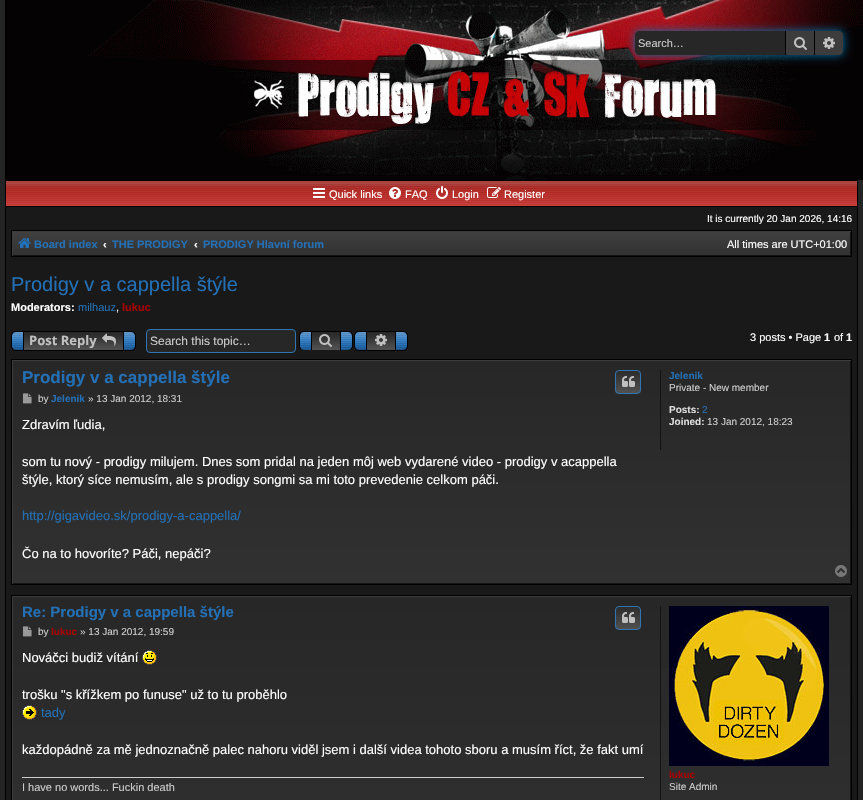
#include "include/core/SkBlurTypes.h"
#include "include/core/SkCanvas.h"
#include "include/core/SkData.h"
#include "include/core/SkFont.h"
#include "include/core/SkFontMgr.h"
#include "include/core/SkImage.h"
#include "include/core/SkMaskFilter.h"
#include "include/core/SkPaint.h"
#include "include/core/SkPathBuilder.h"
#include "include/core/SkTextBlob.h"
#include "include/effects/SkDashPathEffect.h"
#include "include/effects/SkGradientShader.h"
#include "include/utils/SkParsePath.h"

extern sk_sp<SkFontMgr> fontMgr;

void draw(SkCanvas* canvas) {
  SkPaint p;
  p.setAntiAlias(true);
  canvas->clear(SkColorSetRGB(36, 36, 36));
  p.setColor(SkColorSetRGB(25, 25, 25));
  canvas->drawRect(SkRect::MakeLTRB(6, 207, 857, 800), p);
  p.setColor(SK_ColorBLACK);
  canvas->drawRect(SkRect::MakeLTRB(857, 180, 858, 800), p);
  canvas->drawRect(SkRect::MakeLTRB(5, 0, 6, 800), p);
  canvas->drawImageRect(SkImages::DeferredFromEncodedData(SkData::MakeFromFileName("images/1.png")), SkRect::MakeLTRB(6, 0, 863, 180), SkSamplingOptions());
  p.setColor(SkColorSetRGB(0, 117, 176));
  p.setMaskFilter(SkMaskFilter::MakeBlur(kNormal_SkBlurStyle, 5));
  canvas->drawRoundRect(SkRect::MakeLTRB(635, 31, 843, 55), 4, 4, p);
  p.setMaskFilter(nullptr);
  p.setColor(SkColorSetRGB(39, 39, 39));
  canvas->drawPath(SkPathBuilder().moveTo(639, 31).lineTo(785, 31).lineTo(785, 55).lineTo(639, 55).cubicTo(637, 55, 635, 53, 635, 51).lineTo(635, 35).cubicTo(635, 33, 637, 31, 639, 31).close().detach(), p);
  p.setColor(SkColorSetRGB(60, 60, 60));
  canvas->drawRect(SkRect::MakeLTRB(786, 31, 814, 55), p);
  p.setColor(SK_ColorBLACK);
  canvas->drawRect(SkRect::MakeLTRB(814, 31, 815, 55), p);
  canvas->drawRect(SkRect::MakeLTRB(785, 31, 786, 55), p);
  canvas->drawImageRect(SkImages::DeferredFromEncodedData(SkData::MakeFromFileName("images/2.png")), SkRect::MakeLTRB(794, 37, 807, 50), SkSamplingOptions());
  p.setColor(SkColorSetRGB(60, 60, 60));
  canvas->drawPath(SkPathBuilder().moveTo(815, 31).lineTo(839, 31).cubicTo(841, 31, 843, 33, 843, 35).lineTo(843, 51).cubicTo(843, 53, 841, 55, 839, 55).lineTo(815, 55).close().detach(), p);
  canvas->drawImageRect(SkImages::DeferredFromEncodedData(SkData::MakeFromFileName("images/3.png")), SkRect::MakeLTRB(823, 37, 835, 49), SkSamplingOptions());
  canvas->drawImageRect(SkImages::DeferredFromEncodedData(SkData::MakeFromFileName("images/4.png")), SkRect::MakeLTRB(6, 181, 857, 206), SkSamplingOptions());
  p.setColor(SK_ColorBLACK);
  canvas->drawRect(SkRect::MakeLTRB(6, 180, 857, 181), p);
  canvas->drawRect(SkRect::MakeLTRB(6, 206, 857, 207), p);
  canvas->drawImageRect(SkImages::DeferredFromEncodedData(SkData::MakeFromFileName("images/5.png")), SkRect::MakeLTRB(313, 188, 325, 198), SkSamplingOptions());
  canvas->drawImageRect(SkImages::DeferredFromEncodedData(SkData::MakeFromFileName("images/6.png")), SkRect::MakeLTRB(389, 187, 401, 199), SkSamplingOptions());
  canvas->drawImageRect(SkImages::DeferredFromEncodedData(SkData::MakeFromFileName("images/7.png")), SkRect::MakeLTRB(436, 186, 448, 199), SkSamplingOptions());
  canvas->drawImageRect(SkImages::DeferredFromEncodedData(SkData::MakeFromFileName("images/8.png")), SkRect::MakeLTRB(487, 187, 501, 198), SkSamplingOptions());
  {
    const SkColor colors[] = {SkColorSetRGB(64, 64, 64), SkColorSetRGB(49, 49, 49)};
    const float stops[] = {0, 1};
    const SkPoint ends[] = {{432, 231}, {432, 256}};
    p.setShader(SkGradientShader::MakeLinear(ends, colors, stops, 2, SkTileMode::kClamp));
    p.setAlpha(255);
  }
  canvas->drawRect(SkRect::MakeLTRB(13, 232, 850, 255), p);
  canvas->save();
  canvas->clipRect(SkRect::MakeLTRB(12, 231, 851, 256));
  p.setShader(nullptr);
  p.setColor(SkColorSetRGB(19, 19, 19));
  canvas->drawPath(SkPathBuilder(SkPathFillType::kEvenOdd).moveTo(-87, 132).lineTo(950, 132).lineTo(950, 355).lineTo(-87, 355).close().moveTo(11, 230).lineTo(850, 230).lineTo(850, 255).lineTo(11, 255).close().detach(), p);
  p.setColor(SkColorSetRGB(60, 60, 60));
  canvas->drawPath(SkPathBuilder(SkPathFillType::kEvenOdd).moveTo(-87, 132).lineTo(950, 132).lineTo(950, 355).lineTo(-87, 355).close().moveTo(13, 232).lineTo(852, 232).lineTo(852, 257).lineTo(13, 257).close().detach(), p);
  canvas->restore();
  p.setStyle(SkPaint::kStroke_Style);
  p.setStrokeWidth(1);
  p.setColor(SK_ColorBLACK);
  canvas->drawRect(SkRect::MakeLTRB(11.5f, 230.5f, 851.5f, 256.5f), p);
  canvas->drawImageRect(SkImages::DeferredFromEncodedData(SkData::MakeFromFileName("images/9.png")), SkRect::MakeLTRB(18, 238, 31, 248), SkSamplingOptions());
  canvas->drawImageRect(SkImages::DeferredFromEncodedData(SkData::MakeFromFileName("images/10.png")), SkRect::MakeLTRB(11, 331, 136, 351), SkSamplingOptions());
  canvas->drawImageRect(SkImages::DeferredFromEncodedData(SkData::MakeFromFileName("images/11.png")), SkRect::MakeLTRB(102, 333, 116, 346), SkSamplingOptions());
  p.setStyle(SkPaint::kFill_Style);
  p.setColor(SkColorSetRGB(39, 39, 39));
  canvas->drawRoundRect(SkRect::MakeLTRB(146.5f, 329.5f, 295.5f, 352.5f), 3.5f, 3.5f, p);
  p.setStyle(SkPaint::kStroke_Style);
  p.setColor(SkColorSetRGB(47, 116, 179));
  canvas->drawRoundRect(SkRect::MakeLTRB(146.5f, 329.5f, 295.5f, 352.5f), 3.5f, 3.5f, p);
  canvas->drawImageRect(SkImages::DeferredFromEncodedData(SkData::MakeFromFileName("images/12.png")), SkRect::MakeLTRB(299, 331, 353, 350), SkSamplingOptions());
  canvas->drawImageRect(SkImages::DeferredFromEncodedData(SkData::MakeFromFileName("images/13.png")), SkRect::MakeLTRB(319, 334, 332, 347), SkSamplingOptions());
  canvas->drawImageRect(SkImages::DeferredFromEncodedData(SkData::MakeFromFileName("images/14.png")), SkRect::MakeLTRB(354, 331, 408, 351), SkSamplingOptions());
  canvas->drawImageRect(SkImages::DeferredFromEncodedData(SkData::MakeFromFileName("images/15.png")), SkRect::MakeLTRB(375, 334, 387, 346), SkSamplingOptions());
  p.setStyle(SkPaint::kFill_Style);
  {
    const SkColor colors[] = {SkColorSetRGB(39, 39, 39), SkColorSetRGB(49, 49, 49)};
    const float stops[] = {0, 1};
    const SkPoint ends[] = {{432, 360}, {432, 584}};
    p.setShader(SkGradientShader::MakeLinear(ends, colors, stops, 2, SkTileMode::kClamp));
    p.setAlpha(255);
  }
  canvas->drawRect(SkRect::MakeLTRB(13, 361, 850, 583), p);
  canvas->save();
  canvas->clipRect(SkRect::MakeLTRB(12, 360, 851, 584));
  p.setShader(nullptr);
  p.setColor(SkColorSetRGB(19, 19, 19));
  canvas->drawPath(SkPathBuilder(SkPathFillType::kEvenOdd).moveTo(-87, 261).lineTo(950, 261).lineTo(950, 683).lineTo(-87, 683).close().moveTo(11, 359).lineTo(850, 359).lineTo(850, 583).lineTo(11, 583).close().detach(), p);
  p.setColor(SkColorSetRGB(60, 60, 60));
  canvas->drawPath(SkPathBuilder(SkPathFillType::kEvenOdd).moveTo(-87, 261).lineTo(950, 261).lineTo(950, 683).lineTo(-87, 683).close().moveTo(13, 361).lineTo(852, 361).lineTo(852, 585).lineTo(13, 585).close().detach(), p);
  canvas->restore();
  p.setStyle(SkPaint::kStroke_Style);
  p.setColor(SK_ColorBLACK);
  canvas->drawRect(SkRect::MakeLTRB(11.5f, 359.5f, 851.5f, 584.5f), p);
  canvas->save();
  canvas->clipPath(SkPathBuilder().moveTo(619, 370).lineTo(637, 370).cubicTo(639, 370, 641, 372, 641, 374).lineTo(641, 390).cubicTo(641, 392, 639, 394, 637, 394).lineTo(619, 394).cubicTo(617, 394, 615, 392, 615, 390).lineTo(615, 374).cubicTo(615, 372, 617, 370, 619, 370).close().detach(), true);
  p.setStyle(SkPaint::kFill_Style);
  {
    const SkColor colors[] = {SkColorSetRGB(44, 44, 44), SkColorSetRGB(81, 81, 81)};
    const float stops[] = {0, 1};
    const SkPoint ends[] = {{628, 371}, {628, 393}};
    p.setShader(SkGradientShader::MakeLinear(ends, colors, stops, 2, SkTileMode::kClamp));
    p.setAlpha(255);
  }
  canvas->drawRect(SkRect::MakeLTRB(615, 371, 641, 393), p);
  canvas->restore();
  p.setStyle(SkPaint::kStroke_Style);
  p.setShader(nullptr);
  p.setColor(SkColorSetRGB(47, 116, 179));
  canvas->drawRoundRect(SkRect::MakeLTRB(615.5f, 370.5f, 640.5f, 393.5f), 3.5f, 3.5f, p);
  canvas->drawImageRect(SkImages::DeferredFromEncodedData(SkData::MakeFromFileName("images/16.png")), SkRect::MakeLTRB(622, 376, 635, 387), SkSamplingOptions());
  canvas->drawImageRect(SkImages::DeferredFromEncodedData(SkData::MakeFromFileName("images/17.png")), SkRect::MakeLTRB(23, 393, 32, 404), SkSamplingOptions());
  p.setStyle(SkPaint::kFill_Style);
  p.setColor(SkColorSetRGB(19, 19, 19));
  canvas->drawRect(SkRect::MakeLTRB(660, 370, 661, 450), p);
  canvas->drawImageRect(SkImages::DeferredFromEncodedData(SkData::MakeFromFileName("images/18.png")), SkRect::MakeLTRB(835, 565, 847, 577), SkSamplingOptions());
  {
    const SkColor colors[] = {SkColorSetRGB(39, 39, 39), SkColorSetRGB(49, 49, 49)};
    const float stops[] = {0, 1};
    const SkPoint ends[] = {{432, 596}, {432, 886}};
    p.setShader(SkGradientShader::MakeLinear(ends, colors, stops, 2, SkTileMode::kClamp));
    p.setAlpha(255);
  }
  canvas->drawRect(SkRect::MakeLTRB(13, 597, 850, 800), p);
  canvas->save();
  canvas->clipRect(SkRect::MakeLTRB(12, 596, 851, 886));
  p.setShader(nullptr);
  p.setColor(SkColorSetRGB(19, 19, 19));
  canvas->drawPath(SkPathBuilder(SkPathFillType::kEvenOdd).moveTo(-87, 497).lineTo(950, 497).lineTo(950, 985).lineTo(-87, 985).close().moveTo(11, 595).lineTo(850, 595).lineTo(850, 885).lineTo(11, 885).close().detach(), p);
  p.setColor(SkColorSetRGB(60, 60, 60));
  canvas->drawPath(SkPathBuilder(SkPathFillType::kEvenOdd).moveTo(-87, 497).lineTo(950, 497).lineTo(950, 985).lineTo(-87, 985).close().moveTo(13, 597).lineTo(852, 597).lineTo(852, 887).lineTo(13, 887).close().detach(), p);
  canvas->restore();
  p.setStyle(SkPaint::kStroke_Style);
  p.setColor(SK_ColorBLACK);
  canvas->drawRect(SkRect::MakeLTRB(11.5f, 595.5f, 851.5f, 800.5f), p);
  canvas->save();
  canvas->clipPath(SkPathBuilder().moveTo(619, 606).lineTo(637, 606).cubicTo(639, 606, 641, 608, 641, 610).lineTo(641, 626).cubicTo(641, 628, 639, 630, 637, 630).lineTo(619, 630).cubicTo(617, 630, 615, 628, 615, 626).lineTo(615, 610).cubicTo(615, 608, 617, 606, 619, 606).close().detach(), true);
  p.setStyle(SkPaint::kFill_Style);
  {
    const SkColor colors[] = {SkColorSetRGB(44, 44, 44), SkColorSetRGB(81, 81, 81)};
    const float stops[] = {0, 1};
    const SkPoint ends[] = {{628, 607}, {628, 629}};
    p.setShader(SkGradientShader::MakeLinear(ends, colors, stops, 2, SkTileMode::kClamp));
    p.setAlpha(255);
  }
  canvas->drawRect(SkRect::MakeLTRB(615, 607, 641, 629), p);
  canvas->restore();
  p.setStyle(SkPaint::kStroke_Style);
  p.setShader(nullptr);
  p.setColor(SkColorSetRGB(47, 116, 179));
  canvas->drawRoundRect(SkRect::MakeLTRB(615.5f, 606.5f, 640.5f, 629.5f), 3.5f, 3.5f, p);
  canvas->drawImageRect(SkImages::DeferredFromEncodedData(SkData::MakeFromFileName("images/16.png")), SkRect::MakeLTRB(622, 612, 635, 623), SkSamplingOptions());
  canvas->drawImageRect(SkImages::DeferredFromEncodedData(SkData::MakeFromFileName("images/19.png")), SkRect::MakeLTRB(23, 626, 32, 637), SkSamplingOptions());
  canvas->drawImageRect(SkImages::DeferredFromEncodedData(SkData::MakeFromFileName("images/20.png")), SkRect::MakeLTRB(142, 650, 157, 665), SkSamplingOptions());
  canvas->drawImageRect(SkImages::DeferredFromEncodedData(SkData::MakeFromFileName("images/21.png")), SkRect::MakeLTRB(22, 705, 37, 720), SkSamplingOptions());
  p.setStyle(SkPaint::kFill_Style);
  p.setColor(SkColorSetRGB(204, 204, 204));
  canvas->drawRect(SkRect::MakeLTRB(22, 777, 644, 778), p);
  p.setColor(SkColorSetRGB(19, 19, 19));
  canvas->drawRect(SkRect::MakeLTRB(660, 606, 661, 800), p);
  canvas->drawImageRect(SkImages::DeferredFromEncodedData(SkData::MakeFromFileName("images/22.png")), SkRect::MakeLTRB(669, 606, 829, 766), SkSamplingOptions());
  SkFont font1(fontMgr->matchFamilyStyle("Liberation Sans", SkFontStyle::Normal()), 11);
  font1.setSubpixel(true);
  p.setColor(SkColorSetRGB(204, 204, 204));
  canvas->drawString("Search…", 638, 47, font1, p);
  p.setColor(SK_ColorWHITE);
  canvas->drawString("Quick links", 329, 198, font1, p);
  canvas->drawString("FAQ", 405, 198, font1, p);
  canvas->drawString("Login", 452, 198, font1, p);
  canvas->drawString("Register", 504, 198, font1, p);
  SkFont font2(fontMgr->matchFamilyStyle("Liberation Sans", SkFontStyle::Normal()), 10);
  font2.setSubpixel(true);
  canvas->drawString("It is currently 20 Jan 2026, 14:16", 707, 222, font2, p);
  SkFont font3(fontMgr->matchFamilyStyle("Liberation Sans", SkFontStyle::Bold()), 11);
  font3.setSubpixel(true);
  p.setColor(SkColorSetRGB(35, 112, 182));
  canvas->drawString("Board index", 34, 248, font3, p);
  p.setColor(SK_ColorWHITE);
  canvas->drawString("‹", 103, 248, font3, p);
  p.setColor(SkColorSetRGB(35, 112, 182));
  canvas->drawString("THE PRODIGY", 112, 248, font3, p);
  p.setColor(SK_ColorWHITE);
  canvas->drawString("‹", 194, 248, font3, p);
  p.setColor(SkColorSetRGB(35, 112, 182));
  canvas->drawString("PRODIGY Hlavní forum", 203, 248, font3, p);
  p.setColor(SK_ColorWHITE);
  canvas->drawString("All times are UTC+01:00", 727, 248, font1, p);
  SkFont font4(fontMgr->matchFamilyStyle("Liberation Sans", SkFontStyle::Normal()), 20);
  font4.setSubpixel(true);
  p.setColor(SkColorSetRGB(35, 112, 182));
  canvas->drawString("Prodigy v a cappella štýle", 11, 291, font4, p);
  p.setColor(SK_ColorWHITE);
  canvas->drawString("Moderators:", 11, 311, font3, p);
  p.setColor(SkColorSetRGB(35, 112, 182));
  canvas->drawString("milhauz", 78, 311, font1, p);
  p.setColor(SK_ColorWHITE);
  canvas->drawString(",", 116, 311, font1, p);
  p.setColor(SkColorSetRGB(170, 0, 0));
  canvas->drawString("lukuc", 122, 311, font3, p);
  SkFont font5(fontMgr->matchFamilyStyle("Open Sans", SkFontStyle::Bold()), 13);
  font5.setSubpixel(true);
  p.setColor(SkColorSetRGB(192, 192, 192));
  canvas->drawString("Post Reply", 29, 345, font5, p);
  SkFont font6(fontMgr->matchFamilyStyle("Liberation Sans", SkFontStyle::Normal()), 12);
  font6.setSubpixel(true);
  p.setColor(SkColorSetRGB(204, 204, 204));
  canvas->drawString("Search this topic…", 150, 345, font6, p);
  p.setColor(SK_ColorWHITE);
  canvas->drawString("3 posts • Page", 750, 341, font1, p);
  canvas->drawString("1", 824, 341, font3, p);
  canvas->drawString("of", 834, 341, font1, p);
  canvas->drawString("1", 846, 341, font3, p);
  SkFont font7(fontMgr->matchFamilyStyle("Liberation Sans", SkFontStyle::Bold()), 17);
  font7.setSubpixel(true);
  p.setColor(SkColorSetRGB(35, 112, 182));
  canvas->drawString("Prodigy v a cappella štýle", 22, 383, font7, p);
  p.setColor(SkColorSetRGB(204, 204, 204));
  canvas->drawString("by", 38, 402, font2, p);
  SkFont font8(fontMgr->matchFamilyStyle("Liberation Sans", SkFontStyle::Bold()), 10);
  font8.setSubpixel(true);
  p.setColor(SkColorSetRGB(35, 112, 182));
  canvas->drawString("Jelenik", 51, 402, font8, p);
  p.setColor(SkColorSetRGB(204, 204, 204));
  canvas->drawString("» 13 Jan 2012, 18:31", 88, 402, font2, p);
  SkFont font9(fontMgr->matchFamilyStyle("Liberation Sans", SkFontStyle::Normal()), 13);
  font9.setSubpixel(true);
  p.setColor(SK_ColorWHITE);
  canvas->drawString("Zdravím ľudia,", 22, 429, font9, p);
  canvas->drawString("som tu nový - prodigy milujem. Dnes som pridal na jeden môj web vydarené video - prodigy v acappella", 22, 466, font9, p);
  canvas->drawString("štýle, ktorý síce nemusím, ale s prodigy songmi sa mi toto prevedenie celkom páči.", 22, 484, font9, p);
  p.setColor(SkColorSetRGB(35, 112, 182));
  canvas->drawString("http://gigavideo.sk/prodigy-a-cappella/", 22, 520, font9, p);
  p.setColor(SK_ColorWHITE);
  canvas->drawString("Čo na to hovoríte? Páči, nepáči?", 22, 558, font9, p);
  p.setColor(SkColorSetRGB(35, 112, 182));
  canvas->drawString("Jelenik", 669, 379, font8, p);
  p.setColor(SkColorSetRGB(204, 204, 204));
  canvas->drawString("Private - New member", 669, 391, font2, p);
  p.setColor(SkColorSetRGB(221, 221, 221));
  canvas->drawString("Posts:", 669, 413, font8, p);
  p.setColor(SkColorSetRGB(35, 112, 182));
  canvas->drawString("2", 702, 413, font2, p);
  p.setColor(SkColorSetRGB(221, 221, 221));
  canvas->drawString("Joined:", 669, 425, font8, p);
  p.setColor(SkColorSetRGB(204, 204, 204));
  canvas->drawString("13 Jan 2012, 18:23", 707, 425, font2, p);
  SkFont font10(fontMgr->matchFamilyStyle("Liberation Sans", SkFontStyle::Bold()), 15);
  font10.setSubpixel(true);
  p.setColor(SkColorSetRGB(35, 112, 182));
  canvas->drawString("Re: Prodigy v a cappella štýle", 22, 617, font10, p);
  p.setColor(SkColorSetRGB(204, 204, 204));
  canvas->drawString("by", 38, 635, font2, p);
  p.setColor(SkColorSetRGB(170, 0, 0));
  canvas->drawString("lukuc", 51, 635, font8, p);
  p.setColor(SkColorSetRGB(204, 204, 204));
  canvas->drawString("» 13 Jan 2012, 19:59", 80, 635, font2, p);
  p.setColor(SK_ColorWHITE);
  canvas->drawString("Nováčci budiž vítání", 22, 662, font9, p);
  canvas->drawString("trošku \"s křížkem po funuse\" už to tu proběhlo", 22, 699, font9, p);
  p.setColor(SkColorSetRGB(35, 112, 182));
  canvas->drawString("tady", 41, 717, font9, p);
  p.setColor(SK_ColorWHITE);
  canvas->drawString("každopádně za mě jednoznačně palec nahoru viděl jsem i další videa tohoto sboru a musím říct, že fakt umí", 22, 754, font9, p);
  p.setColor(SkColorSetRGB(204, 204, 204));
  canvas->drawString("I have no words... Fuckin death", 22, 791, font1, p);
  p.setColor(SkColorSetRGB(170, 0, 0));
  canvas->drawString("lukuc", 669, 778, font8, p);
  p.setColor(SkColorSetRGB(204, 204, 204));
  canvas->drawString("Site Admin", 669, 790, font2, p);
}
